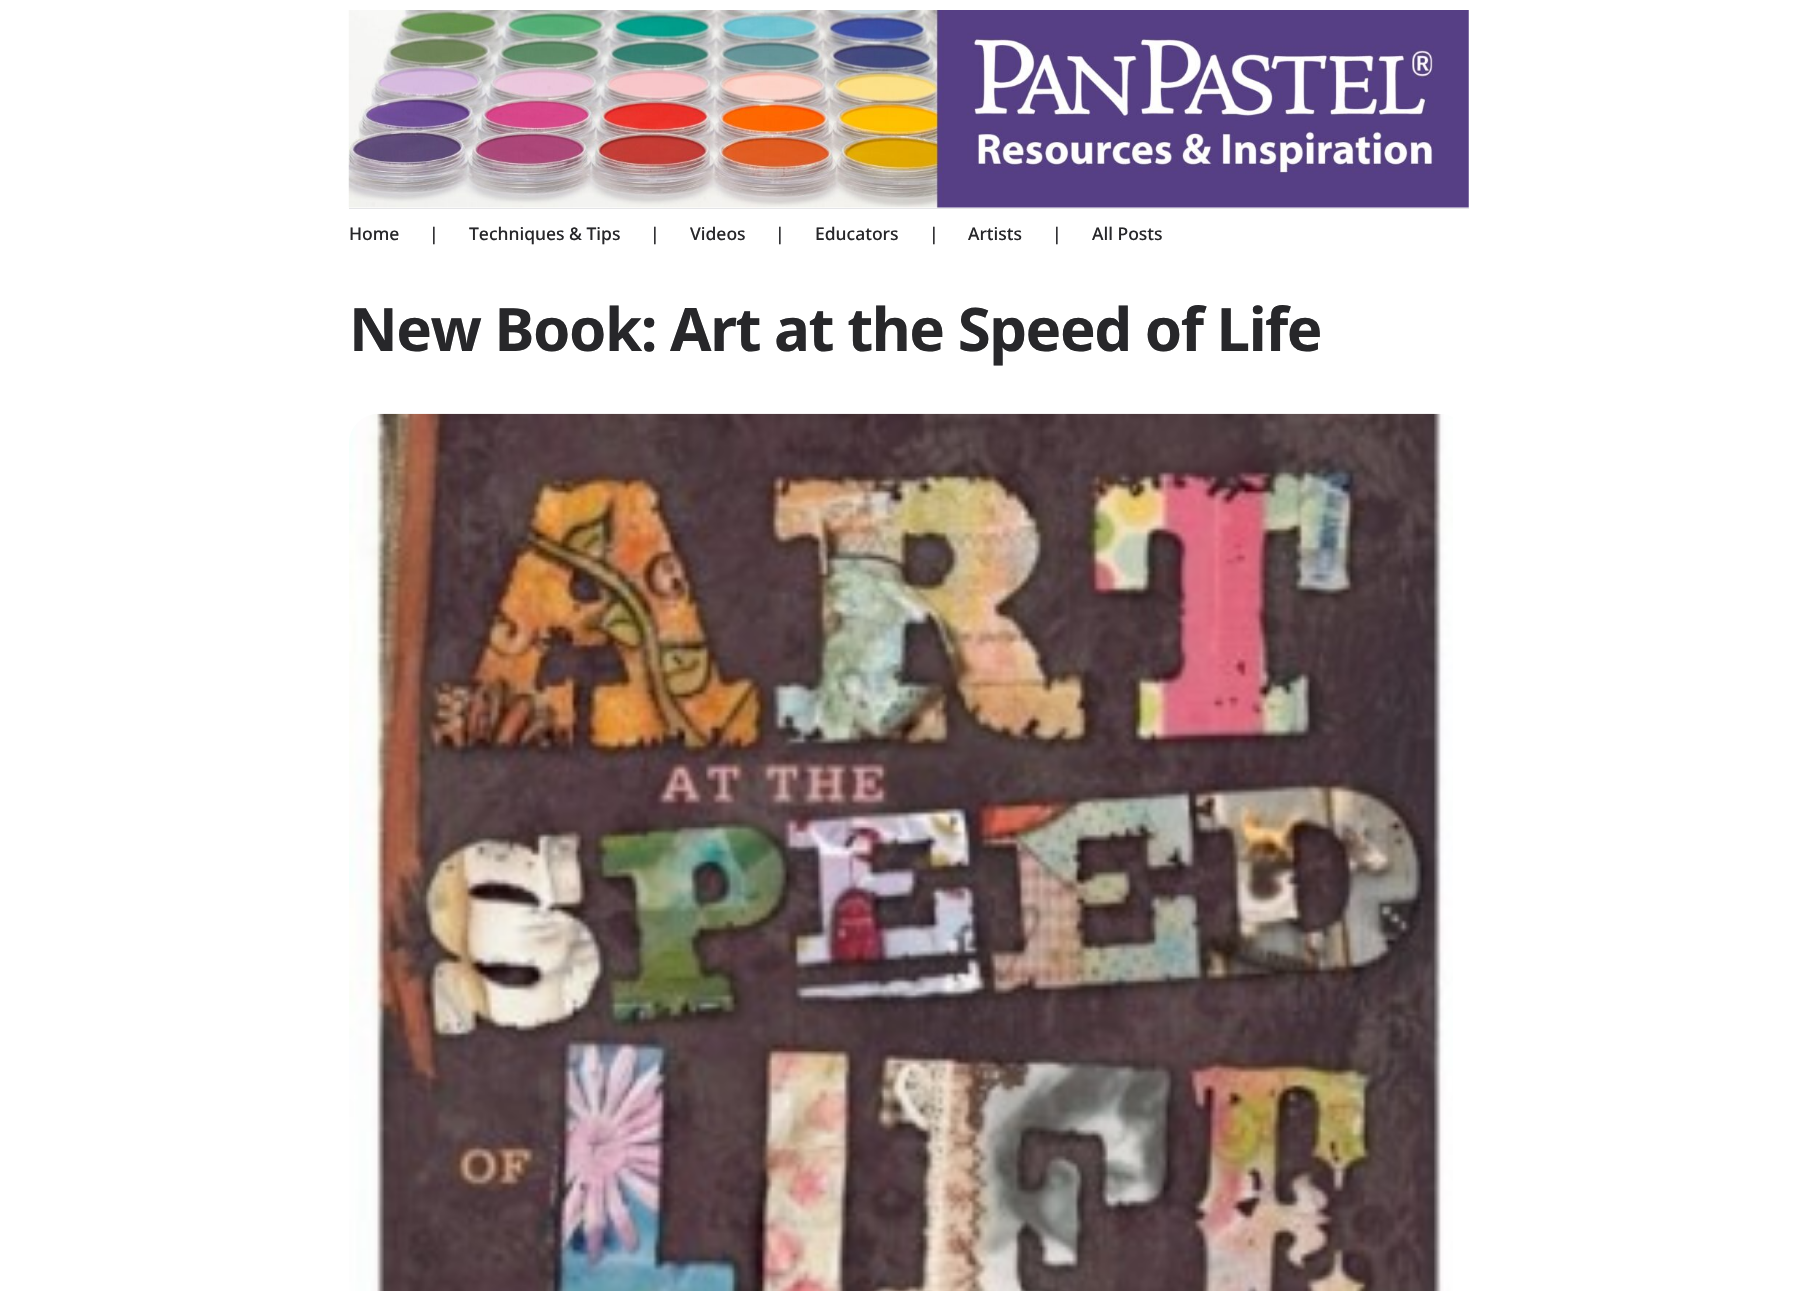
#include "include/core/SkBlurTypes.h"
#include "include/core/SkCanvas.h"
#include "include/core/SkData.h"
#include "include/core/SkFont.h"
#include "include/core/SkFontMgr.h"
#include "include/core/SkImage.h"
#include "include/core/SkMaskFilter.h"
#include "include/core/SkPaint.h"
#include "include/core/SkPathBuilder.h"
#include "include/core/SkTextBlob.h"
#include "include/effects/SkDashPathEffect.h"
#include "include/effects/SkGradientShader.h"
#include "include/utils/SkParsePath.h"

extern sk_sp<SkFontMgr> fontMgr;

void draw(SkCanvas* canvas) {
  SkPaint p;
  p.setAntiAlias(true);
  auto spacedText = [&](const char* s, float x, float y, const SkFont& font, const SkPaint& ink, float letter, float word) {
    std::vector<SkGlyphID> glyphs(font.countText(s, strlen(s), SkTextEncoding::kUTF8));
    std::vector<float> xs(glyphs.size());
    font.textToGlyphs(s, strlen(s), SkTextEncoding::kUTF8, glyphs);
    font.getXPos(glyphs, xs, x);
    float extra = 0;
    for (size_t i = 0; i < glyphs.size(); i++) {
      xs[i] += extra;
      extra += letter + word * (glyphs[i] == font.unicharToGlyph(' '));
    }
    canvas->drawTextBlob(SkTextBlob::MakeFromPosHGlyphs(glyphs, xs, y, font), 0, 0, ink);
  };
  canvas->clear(SK_ColorWHITE);
  p.setColor(SkColorSetRGB(228, 228, 231));
  canvas->drawRect(SkRect::MakeLTRB(349, 208, 1469, 209), p);
  canvas->drawImageRect(SkImages::DeferredFromEncodedData(SkData::MakeFromFileName("images/1.png")), SkRect::MakeLTRB(348, 10, 1469, 208), SkSamplingOptions());
  canvas->drawImageRect(SkImages::DeferredFromEncodedData(SkData::MakeFromFileName("images/2.png")), SkRect::MakeLTRB(349, 413, 1453, 1291), SkSamplingOptions());
  SkFont font1(fontMgr->matchFamilyStyle("Noto Sans", SkFontStyle(500, SkFontStyle::kNormal_Width, SkFontStyle::kUpright_Slant)), 17.5f);
  font1.setSubpixel(true);
  p.setColor(SkColorSetRGB(39, 39, 42));
  canvas->drawString("Home", 349, 240, font1, p);
  canvas->drawString("|", 429, 240, font1, p);
  canvas->drawString("Techniques & Tips", 469, 240, font1, p);
  canvas->drawString("|", 650, 240, font1, p);
  canvas->drawString("Videos", 690, 240, font1, p);
  canvas->drawString("|", 775, 240, font1, p);
  canvas->drawString("Educators", 815, 240, font1, p);
  canvas->drawString("|", 929, 240, font1, p);
  canvas->drawString("Artists", 968, 240, font1, p);
  canvas->drawString("|", 1052, 240, font1, p);
  canvas->drawString("All Posts", 1092, 240, font1, p);
  SkFont font2(fontMgr->matchFamilyStyle("Noto Sans", SkFontStyle::Bold()), 60);
  font2.setSubpixel(true);
  spacedText("New Book: Art at the Speed of Life", 349, 351, font2, p, -1.5f, 0);
}
